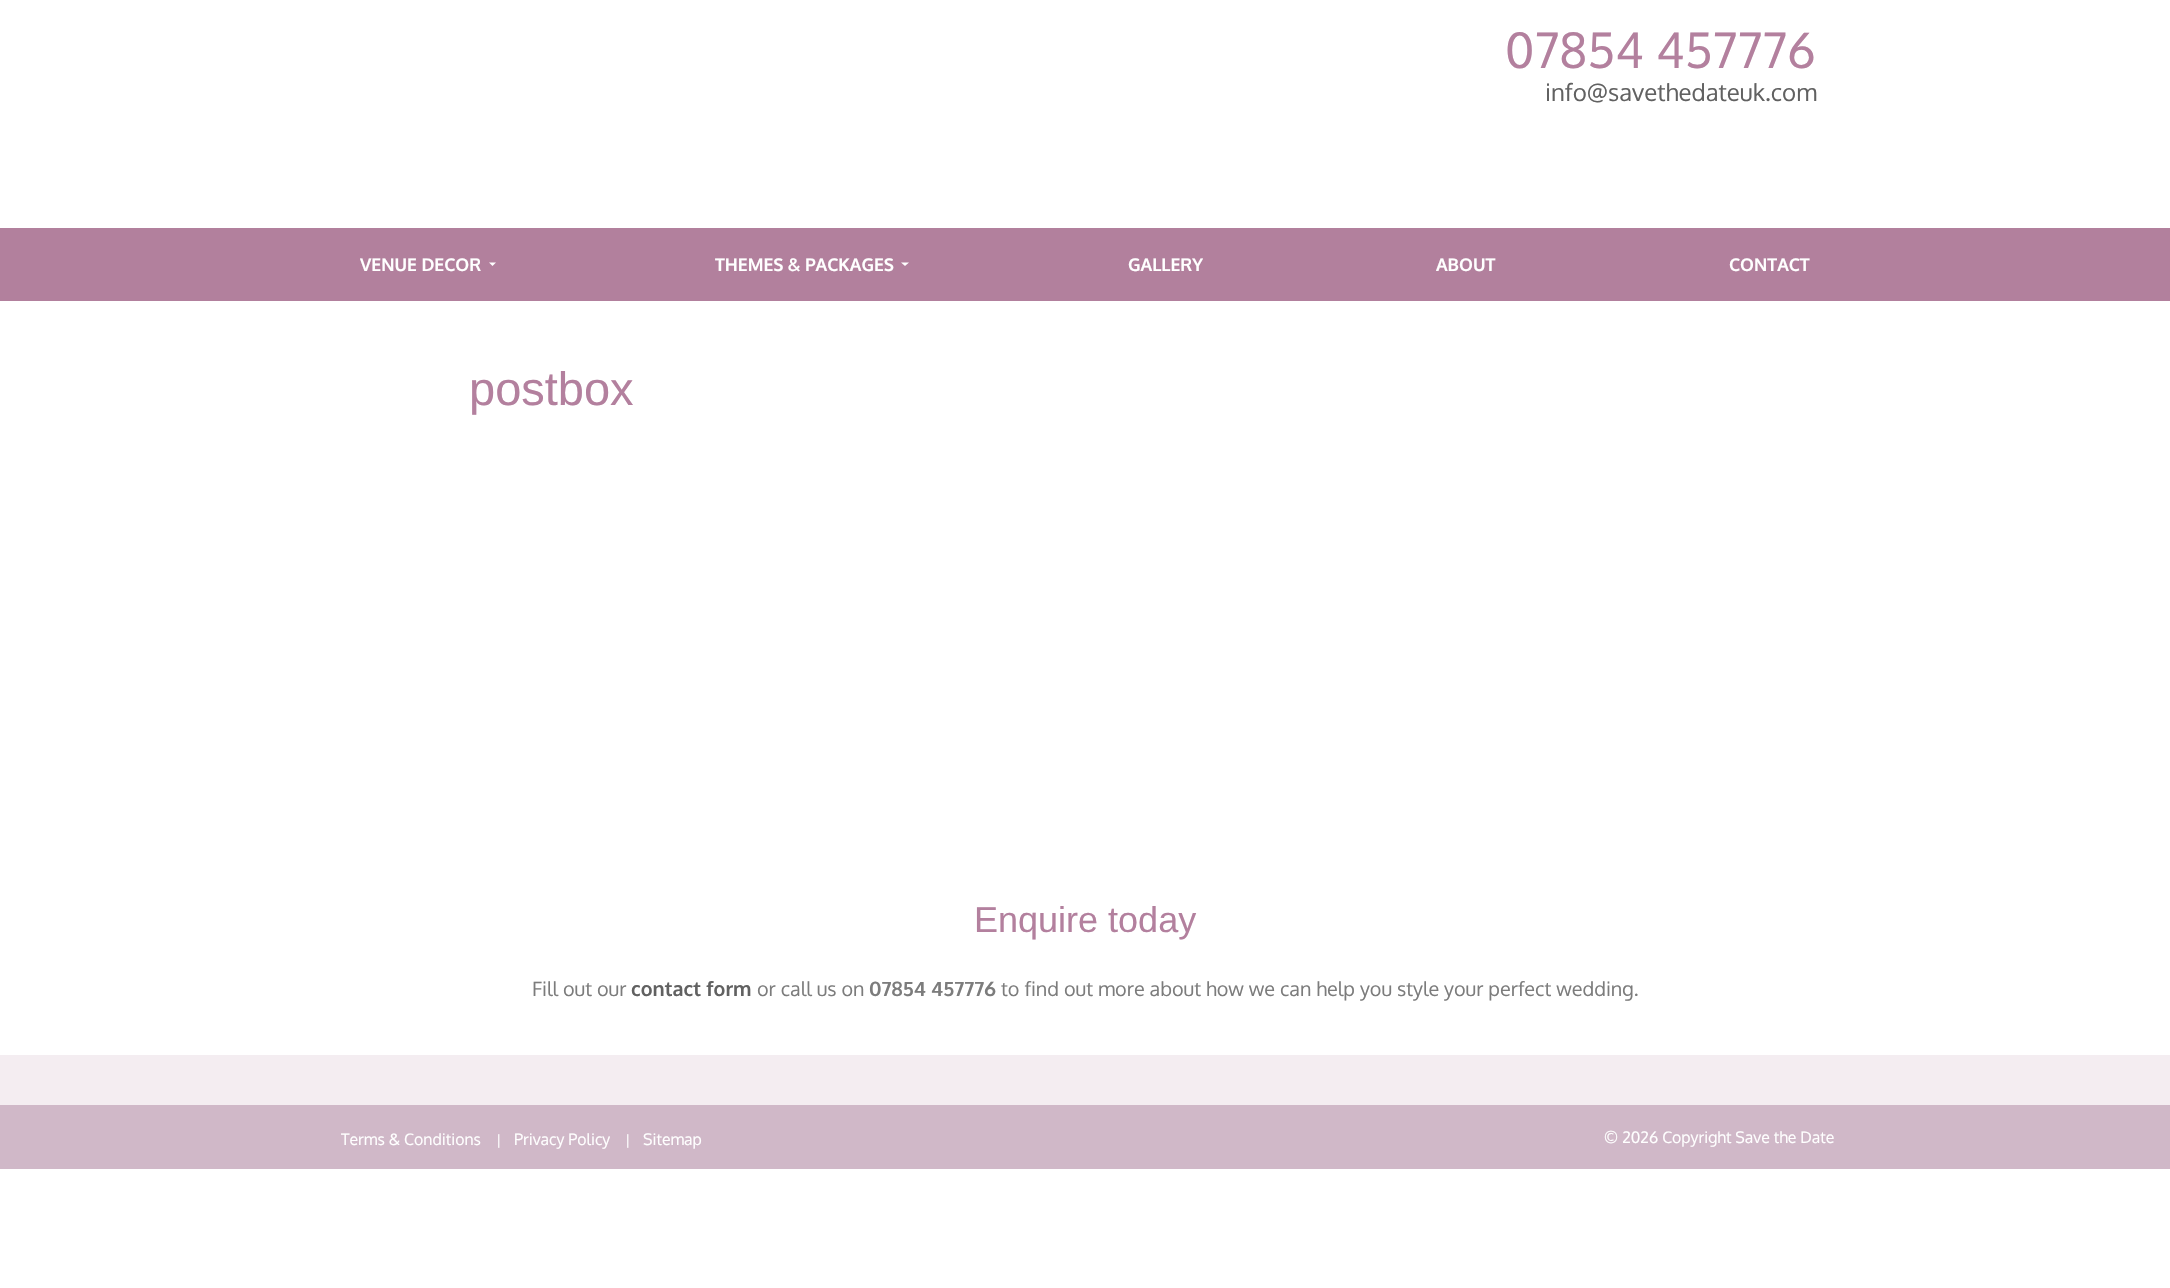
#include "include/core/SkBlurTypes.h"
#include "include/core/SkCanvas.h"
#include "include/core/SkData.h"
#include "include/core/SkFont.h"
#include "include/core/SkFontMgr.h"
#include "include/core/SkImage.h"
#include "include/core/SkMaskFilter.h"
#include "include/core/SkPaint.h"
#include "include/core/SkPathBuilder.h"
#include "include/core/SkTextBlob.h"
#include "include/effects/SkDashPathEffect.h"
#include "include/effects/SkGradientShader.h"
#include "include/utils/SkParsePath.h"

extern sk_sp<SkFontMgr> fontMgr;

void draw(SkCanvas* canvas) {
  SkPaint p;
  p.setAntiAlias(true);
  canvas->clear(SK_ColorWHITE);
  p.setColor(SkColorSetRGB(178, 128, 157));
  canvas->drawRect(SkRect::MakeLTRB(0, 228, 2170, 301), p);
  p.setColor(SK_ColorWHITE);
  canvas->drawPath(SkPathBuilder().moveTo(489, 262.5f).lineTo(496, 262.5f).lineTo(492.5f, 266).close().detach(), p);
  canvas->drawPath(SkPathBuilder().moveTo(901, 262.5f).lineTo(909, 262.5f).lineTo(905, 266).close().detach(), p);
  p.setColor(SkColorSetRGB(244, 237, 241));
  canvas->drawRect(SkRect::MakeLTRB(0, 1055, 2170, 1105), p);
  p.setColor(SkColorSetRGB(208, 184, 200));
  canvas->drawRect(SkRect::MakeLTRB(0, 1105, 2170, 1169), p);
  SkFont font1(fontMgr->matchFamilyStyle("Oxygen", SkFontStyle::Normal()), 48.5f);
  font1.setSubpixel(true);
  p.setColor(SkColorSetRGB(179, 128, 158));
  canvas->drawString("07854 457776", 1505, 68, font1, p);
  SkFont font2(fontMgr->matchFamilyStyle("Oxygen", SkFontStyle::Normal()), 24);
  font2.setSubpixel(true);
  p.setColor(SkColorSetRGB(97, 97, 97));
  canvas->drawString("info@savethedateuk.com", 1545, 101, font2, p);
  SkFont font3(fontMgr->matchFamilyStyle("Oxygen", SkFontStyle::Bold()), 17.5f);
  font3.setSubpixel(true);
  p.setColor(SK_ColorWHITE);
  canvas->drawString("VENUE DECOR", 360, 271, font3, p);
  canvas->drawString("THEMES & PACKAGES", 715, 271, font3, p);
  canvas->drawString("GALLERY", 1128, 271, font3, p);
  canvas->drawString("ABOUT", 1436, 271, font3, p);
  canvas->drawString("CONTACT", 1729, 271, font3, p);
  SkFont font4(fontMgr->matchFamilyStyle("Liberation Sans", SkFontStyle::Normal()), 47);
  font4.setSubpixel(true);
  p.setColor(SkColorSetRGB(179, 128, 158));
  canvas->drawString("postbox", 469, 405, font4, p);
  SkFont font5(fontMgr->matchFamilyStyle("Liberation Sans", SkFontStyle::Normal()), 36);
  font5.setSubpixel(true);
  canvas->drawString("Enquire today", 974, 932, font5, p);
  SkFont font6(fontMgr->matchFamilyStyle("Oxygen", SkFontStyle::Normal()), 19.8f);
  font6.setSubpixel(true);
  p.setColor(SkColorSetRGB(124, 124, 124));
  canvas->drawString("Fill out our", 532, 996, font6, p);
  SkFont font7(fontMgr->matchFamilyStyle("Oxygen", SkFontStyle::Bold()), 19.8f);
  font7.setSubpixel(true);
  p.setColor(SkColorSetRGB(97, 97, 97));
  canvas->drawString("contact form", 631, 996, font7, p);
  p.setColor(SkColorSetRGB(124, 124, 124));
  canvas->drawString("or call us on", 757, 996, font6, p);
  canvas->drawString("07854 457776", 869, 996, font7, p);
  canvas->drawString("to find out more about how we can help you style your perfect wedding.", 1001, 996, font6, p);
  SkFont font8(fontMgr->matchFamilyStyle("Oxygen", SkFontStyle::Normal()), 15.8f);
  font8.setSubpixel(true);
  p.setColor(SK_ColorWHITE);
  canvas->drawString("Terms & Conditions", 341, 1145, font8, p);
  SkFont font9(fontMgr->matchFamilyStyle("Oxygen", SkFontStyle::Normal()), 14);
  font9.setSubpixel(true);
  canvas->drawString("|", 496, 1145, font9, p);
  canvas->drawString("Privacy Policy", 514, 1145, font8, p);
  canvas->drawString("|", 625, 1145, font9, p);
  canvas->drawString("Sitemap", 643, 1145, font8, p);
  canvas->drawString("© 2026 Copyright Save the Date", 1604, 1143, font8, p);
}
